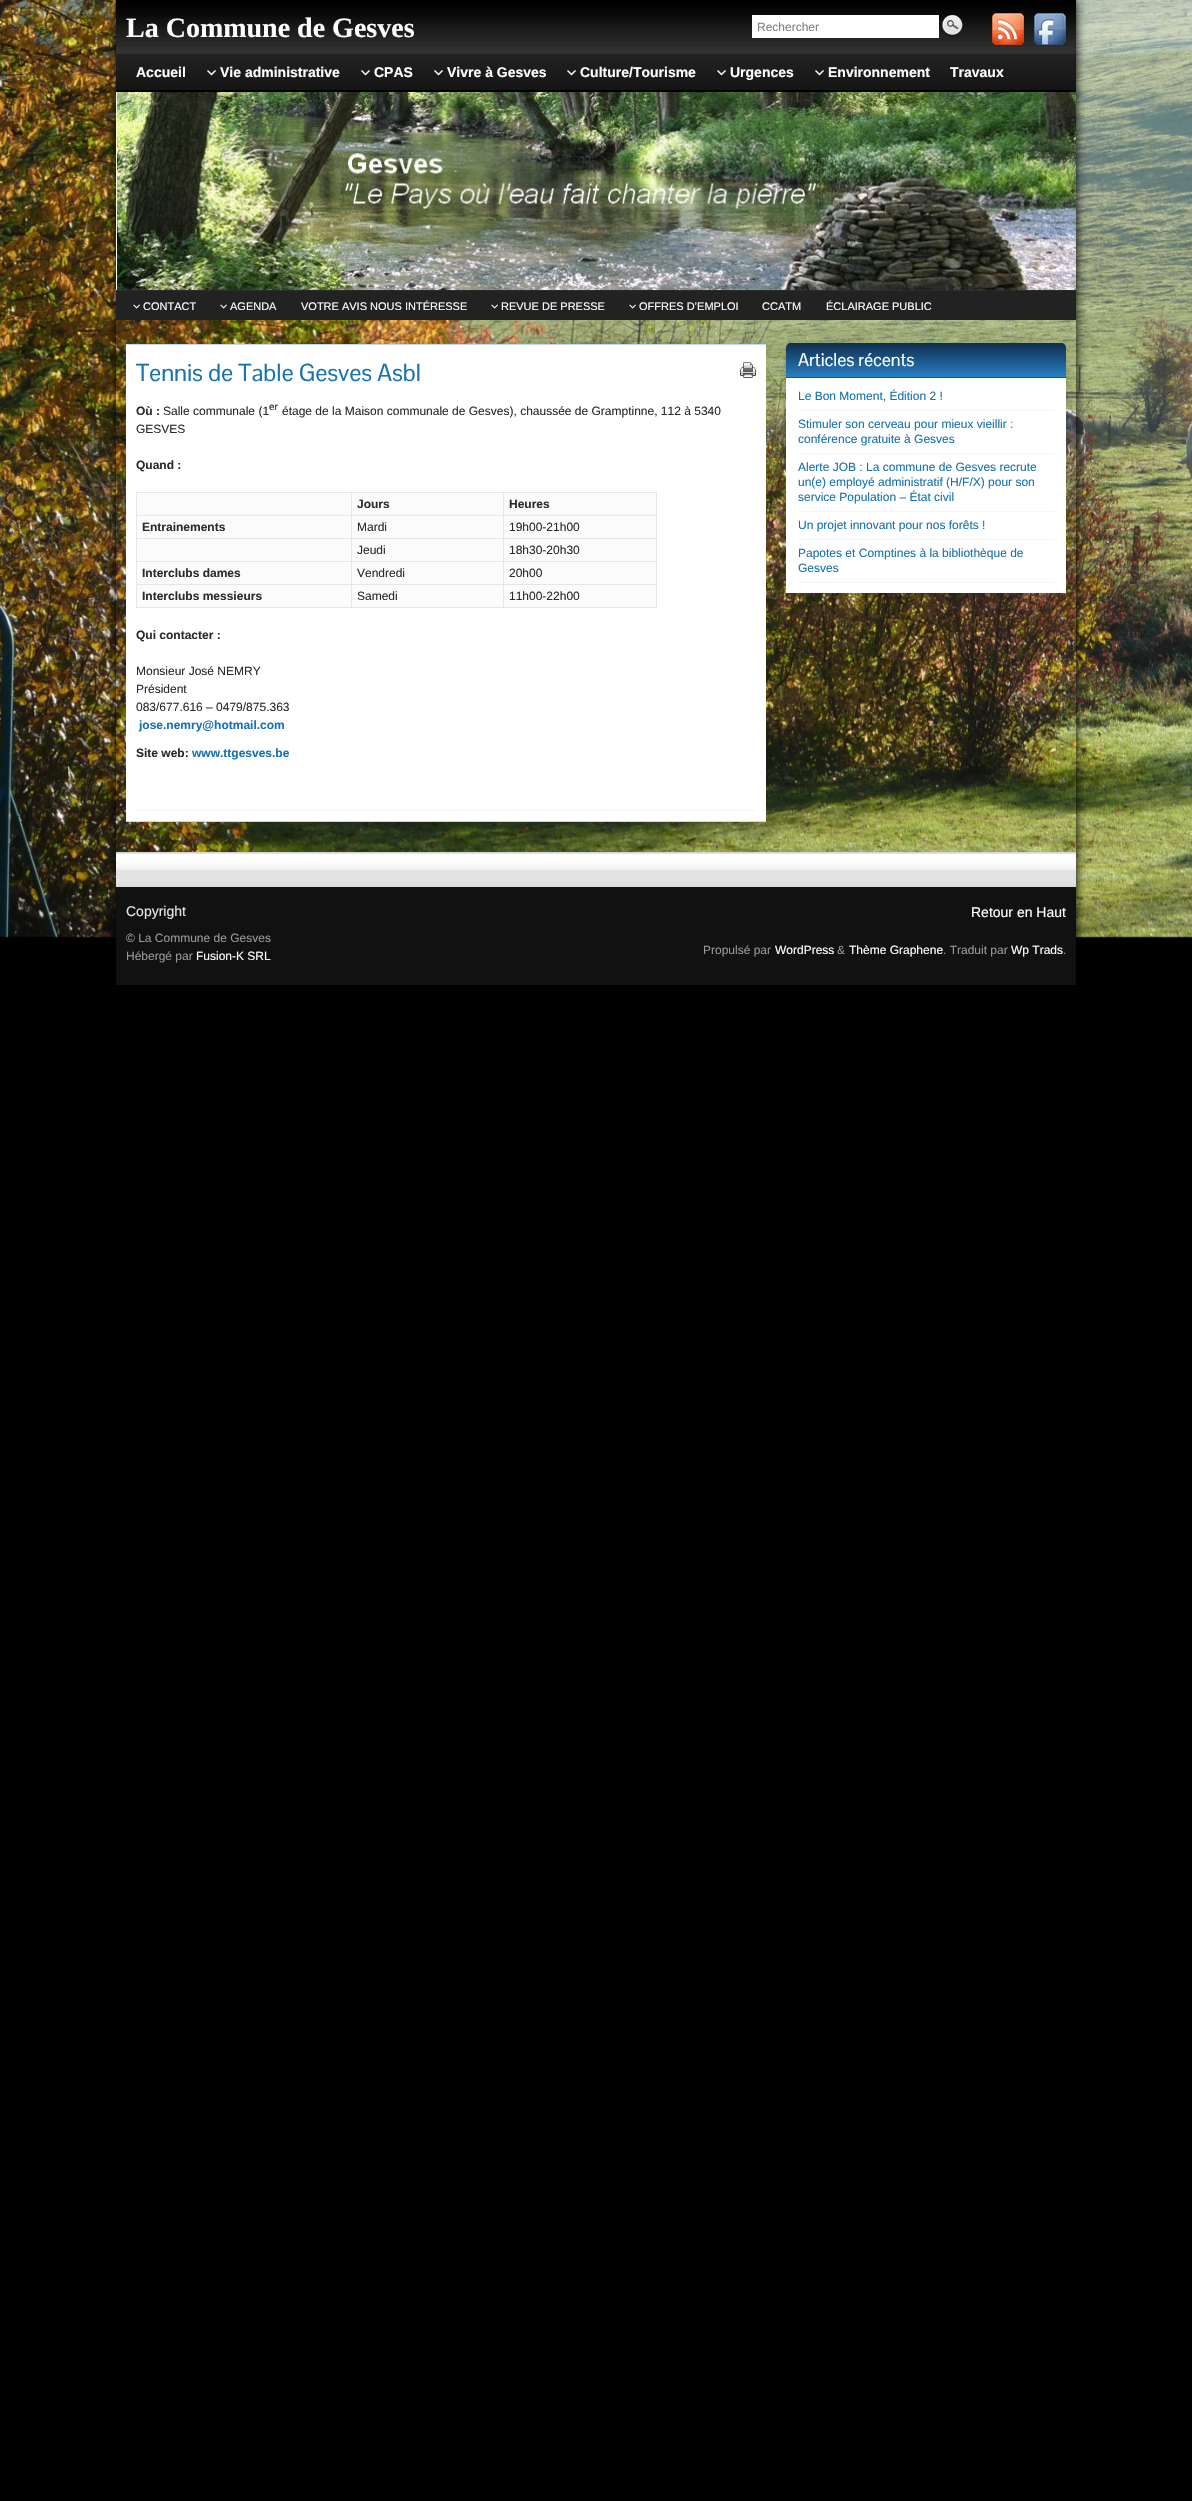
#include "include/core/SkBlurTypes.h"
#include "include/core/SkCanvas.h"
#include "include/core/SkData.h"
#include "include/core/SkFont.h"
#include "include/core/SkFontMgr.h"
#include "include/core/SkImage.h"
#include "include/core/SkMaskFilter.h"
#include "include/core/SkPaint.h"
#include "include/core/SkPathBuilder.h"
#include "include/core/SkTextBlob.h"
#include "include/effects/SkDashPathEffect.h"
#include "include/effects/SkGradientShader.h"
#include "include/utils/SkParsePath.h"

extern sk_sp<SkFontMgr> fontMgr;

void draw(SkCanvas* canvas) {
  SkPaint p;
  p.setAntiAlias(true);
  canvas->clear(SK_ColorBLACK);
  canvas->drawImageRect(SkImages::DeferredFromEncodedData(SkData::MakeFromFileName("images/1.png")), SkRect::MakeLTRB(0, 0, 1192, 938), SkSamplingOptions());
  canvas->save();
  canvas->clipPath(SkPathBuilder(SkPathFillType::kEvenOdd).moveTo(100, 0).lineTo(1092, 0).lineTo(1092, 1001).lineTo(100, 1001).close().moveTo(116, 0).lineTo(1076, 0).lineTo(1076, 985).lineTo(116, 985).close().detach(), true);
  p.setColor(SK_ColorBLACK);
  p.setMaskFilter(SkMaskFilter::MakeBlur(kNormal_SkBlurStyle, 5));
  canvas->drawRect(SkRect::MakeLTRB(116, 0, 1076, 985), p);
  p.setMaskFilter(nullptr);
  canvas->restore();
  p.setColor(SkColorSetRGB(49, 49, 48));
  canvas->drawRect(SkRect::MakeLTRB(116, 47, 1076, 54), p);
  canvas->drawImageRect(SkImages::DeferredFromEncodedData(SkData::MakeFromFileName("images/2.png")), SkRect::MakeLTRB(116, 0, 1076, 47), SkSamplingOptions());
  p.setColor(SkColorSetRGB(34, 34, 34));
  canvas->drawRect(SkRect::MakeLTRB(116, 54, 1076, 55), p);
  p.setColor(SK_ColorWHITE);
  canvas->drawRect(SkRect::MakeLTRB(752, 15, 939, 38), p);
  canvas->drawImageRect(SkImages::DeferredFromEncodedData(SkData::MakeFromFileName("images/3.png")), SkRect::MakeLTRB(942, 15, 963, 37), SkSamplingOptions());
  canvas->drawImageRect(SkImages::DeferredFromEncodedData(SkData::MakeFromFileName("images/4.png")), SkRect::MakeLTRB(992, 13, 1024, 45), SkSamplingOptions());
  canvas->drawImageRect(SkImages::DeferredFromEncodedData(SkData::MakeFromFileName("images/5.png")), SkRect::MakeLTRB(1034, 13, 1066, 45), SkSamplingOptions());
  canvas->drawImageRect(SkImages::DeferredFromEncodedData(SkData::MakeFromFileName("images/6.png")), SkRect::MakeLTRB(116, 55, 1076, 90), SkSamplingOptions());
  p.setColor(SK_ColorBLACK);
  canvas->drawRect(SkRect::MakeLTRB(116, 90, 1076, 92), p);
  canvas->drawImageRect(SkImages::DeferredFromEncodedData(SkData::MakeFromFileName("images/7.png")), SkRect::MakeLTRB(207, 70, 216, 76), SkSamplingOptions());
  canvas->drawImageRect(SkImages::DeferredFromEncodedData(SkData::MakeFromFileName("images/7.png")), SkRect::MakeLTRB(361, 70, 370, 76), SkSamplingOptions());
  canvas->drawImageRect(SkImages::DeferredFromEncodedData(SkData::MakeFromFileName("images/7.png")), SkRect::MakeLTRB(434, 70, 443, 76), SkSamplingOptions());
  canvas->drawImageRect(SkImages::DeferredFromEncodedData(SkData::MakeFromFileName("images/7.png")), SkRect::MakeLTRB(567, 70, 576, 76), SkSamplingOptions());
  canvas->drawImageRect(SkImages::DeferredFromEncodedData(SkData::MakeFromFileName("images/7.png")), SkRect::MakeLTRB(717, 70, 726, 76), SkSamplingOptions());
  canvas->drawImageRect(SkImages::DeferredFromEncodedData(SkData::MakeFromFileName("images/7.png")), SkRect::MakeLTRB(815, 70, 824, 76), SkSamplingOptions());
  canvas->drawImageRect(SkImages::DeferredFromEncodedData(SkData::MakeFromFileName("images/8.png")), SkRect::MakeLTRB(116, 92, 1076, 290), SkSamplingOptions());
  p.setColor(SkColorSetRGB(34, 34, 34));
  canvas->drawRect(SkRect::MakeLTRB(116, 291, 1076, 320), p);
  p.setColor(SkColorSetRGB(44, 44, 44));
  canvas->drawRect(SkRect::MakeLTRB(116, 290, 1076, 291), p);
  canvas->drawImageRect(SkImages::DeferredFromEncodedData(SkData::MakeFromFileName("images/9.png")), SkRect::MakeLTRB(133, 304, 140, 309), SkSamplingOptions());
  canvas->drawImageRect(SkImages::DeferredFromEncodedData(SkData::MakeFromFileName("images/9.png")), SkRect::MakeLTRB(220, 304, 227, 309), SkSamplingOptions());
  canvas->drawImageRect(SkImages::DeferredFromEncodedData(SkData::MakeFromFileName("images/9.png")), SkRect::MakeLTRB(491, 304, 498, 309), SkSamplingOptions());
  canvas->drawImageRect(SkImages::DeferredFromEncodedData(SkData::MakeFromFileName("images/9.png")), SkRect::MakeLTRB(629, 304, 636, 309), SkSamplingOptions());
  p.setColor(SK_ColorWHITE);
  canvas->drawRect(SkRect::MakeLTRB(126, 345, 766, 821), p);
  p.setColor(SkColorSetRGB(196, 216, 249));
  canvas->drawRect(SkRect::MakeLTRB(126, 344, 766, 345), p);
  canvas->drawRect(SkRect::MakeLTRB(126, 821, 766, 822), p);
  canvas->drawImageRect(SkImages::DeferredFromEncodedData(SkData::MakeFromFileName("images/10.png")), SkRect::MakeLTRB(740, 362, 756, 378), SkSamplingOptions());
  p.setColor(SkColorSetRGB(251, 251, 251));
  canvas->drawRect(SkRect::MakeLTRB(137, 493, 656, 515), p);
  p.setColor(SkColorSetRGB(230, 230, 230));
  canvas->drawRect(SkRect::MakeLTRB(136, 492, 657, 493), p);
  canvas->drawRect(SkRect::MakeLTRB(136, 515, 657, 516), p);
  canvas->drawRect(SkRect::MakeLTRB(136, 538, 657, 539), p);
  canvas->drawRect(SkRect::MakeLTRB(136, 561, 657, 562), p);
  canvas->drawRect(SkRect::MakeLTRB(136, 584, 657, 585), p);
  canvas->drawRect(SkRect::MakeLTRB(656, 584, 657, 608), p);
  canvas->drawRect(SkRect::MakeLTRB(656, 561, 657, 585), p);
  canvas->drawRect(SkRect::MakeLTRB(656, 538, 657, 562), p);
  canvas->drawRect(SkRect::MakeLTRB(656, 515, 657, 539), p);
  canvas->drawRect(SkRect::MakeLTRB(656, 492, 657, 516), p);
  canvas->drawRect(SkRect::MakeLTRB(136, 607, 657, 608), p);
  canvas->drawRect(SkRect::MakeLTRB(136, 584, 137, 608), p);
  canvas->drawRect(SkRect::MakeLTRB(136, 561, 137, 585), p);
  canvas->drawRect(SkRect::MakeLTRB(136, 538, 137, 562), p);
  canvas->drawRect(SkRect::MakeLTRB(136, 515, 137, 539), p);
  canvas->drawRect(SkRect::MakeLTRB(136, 492, 137, 516), p);
  p.setColor(SkColorSetRGB(251, 251, 251));
  canvas->drawRect(SkRect::MakeLTRB(137, 516, 656, 538), p);
  canvas->drawRect(SkRect::MakeLTRB(137, 539, 656, 561), p);
  canvas->drawRect(SkRect::MakeLTRB(137, 562, 656, 584), p);
  canvas->drawRect(SkRect::MakeLTRB(137, 585, 656, 607), p);
  p.setColor(SkColorSetRGB(230, 230, 230));
  canvas->drawRect(SkRect::MakeLTRB(351, 492, 352, 608), p);
  canvas->drawRect(SkRect::MakeLTRB(503, 492, 504, 608), p);
  p.setColor(SkColorSetRGB(245, 245, 245));
  canvas->drawRect(SkRect::MakeLTRB(136, 810, 756, 811), p);
  p.setColor(SkColorSetARGB(38, 0, 0, 0));
  p.setMaskFilter(SkMaskFilter::MakeBlur(kNormal_SkBlurStyle, 2.5f));
  canvas->drawRect(SkRect::MakeLTRB(786, 348, 1066, 593), p);
  p.setMaskFilter(nullptr);
  p.setColor(SK_ColorWHITE);
  canvas->drawRect(SkRect::MakeLTRB(786, 378, 1066, 593), p);
  {
    const SkColor colors[] = {SkColorSetRGB(15, 45, 77), SkColorSetRGB(40, 128, 195)};
    const float stops[] = {0, 1};
    const SkPoint ends[] = {{926, 343}, {926, 377}};
    p.setShader(SkGradientShader::MakeLinear(ends, colors, stops, 2, SkTileMode::kClamp));
    p.setAlpha(255);
  }
  canvas->drawPath(SkPathBuilder().moveTo(791, 343).lineTo(1061, 343).cubicTo(1064, 343, 1066, 345, 1066, 348).lineTo(1066, 377).lineTo(786, 377).lineTo(786, 348).cubicTo(786, 345, 788, 343, 791, 343).close().detach(), p);
  p.setShader(nullptr);
  p.setColor(SkColorSetRGB(25, 83, 146));
  canvas->drawRect(SkRect::MakeLTRB(786, 377, 1066, 378), p);
  p.setColor(SkColorSetRGB(245, 245, 245));
  canvas->drawRect(SkRect::MakeLTRB(798, 410, 1054, 411), p);
  canvas->drawRect(SkRect::MakeLTRB(798, 453, 1054, 454), p);
  canvas->drawRect(SkRect::MakeLTRB(798, 511, 1054, 512), p);
  canvas->drawRect(SkRect::MakeLTRB(798, 539, 1054, 540), p);
  canvas->drawRect(SkRect::MakeLTRB(798, 582, 1054, 583), p);
  p.setColor(SkColorSetRGB(17, 17, 17));
  canvas->drawRect(SkRect::MakeLTRB(116, 887, 1076, 985), p);
  canvas->drawImageRect(SkImages::DeferredFromEncodedData(SkData::MakeFromFileName("images/11.png")), SkRect::MakeLTRB(116, 853, 1076, 887), SkSamplingOptions());
  p.setColor(SkColorSetRGB(213, 213, 213));
  canvas->drawRect(SkRect::MakeLTRB(116, 852, 1076, 853), p);
  SkFont font1(fontMgr->matchFamilyStyle("Liberation Serif", SkFontStyle::Bold()), 28);
  font1.setSubpixel(true);
  p.setColor(SK_ColorWHITE);
  canvas->drawString("La Commune de Gesves", 126, 37, font1, p);
  SkFont font2(fontMgr->matchFamilyStyle("Liberation Sans", SkFontStyle::Normal()), 12);
  font2.setSubpixel(true);
  p.setColor(SkColorSetRGB(128, 128, 128));
  canvas->drawString("Rechercher", 757, 31, font2, p);
  SkFont font3(fontMgr->matchFamilyStyle("Liberation Sans", SkFontStyle::Bold()), 14);
  font3.setSubpixel(true);
  p.setColor(SK_ColorWHITE);
  canvas->drawString("Accueil", 136, 77, font3, p);
  canvas->drawString("Vie administrative", 220, 77, font3, p);
  canvas->drawString("CPAS", 374, 77, font3, p);
  canvas->drawString("Vivre à Gesves", 447, 77, font3, p);
  canvas->drawString("Culture/Tourisme", 580, 77, font3, p);
  canvas->drawString("Urgences", 730, 77, font3, p);
  canvas->drawString("Environnement", 828, 77, font3, p);
  canvas->drawString("Travaux", 950, 77, font3, p);
  SkFont font4(fontMgr->matchFamilyStyle("Liberation Sans", SkFontStyle::Normal()), 11);
  font4.setSubpixel(true);
  canvas->drawString("CONTACT", 143, 310, font4, p);
  canvas->drawString("AGENDA", 230, 310, font4, p);
  canvas->drawString("VOTRE AVIS NOUS INTÉRESSE", 301, 310, font4, p);
  canvas->drawString("REVUE DE PRESSE", 501, 310, font4, p);
  canvas->drawString("OFFRES D’EMPLOI", 639, 310, font4, p);
  canvas->drawString("CCATM", 762, 310, font4, p);
  canvas->drawString("ÉCLAIRAGE PUBLIC", 826, 310, font4, p);
  SkFont font5(fontMgr->matchFamilyStyle("Pontano Sans", SkFontStyle::Normal()), 24);
  font5.setSubpixel(true);
  p.setColor(SkColorSetRGB(23, 114, 175));
  canvas->drawString("Tennis de Table Gesves Asbl", 136, 381, font5, p);
  SkFont font6(fontMgr->matchFamilyStyle("Liberation Sans", SkFontStyle::Bold()), 12);
  font6.setSubpixel(true);
  p.setColor(SkColorSetRGB(44, 43, 43));
  canvas->drawString("Où :", 136, 415, font6, p);
  canvas->drawString("Salle communale (1", 163, 415, font2, p);
  SkFont font7(fontMgr->matchFamilyStyle("Liberation Sans", SkFontStyle::Normal()), 10);
  font7.setSubpixel(true);
  canvas->drawString("er", 269, 410, font7, p);
  canvas->drawString("étage de la Maison communale de Gesves), chaussée de Gramptinne, 112 à 5340", 282, 415, font2, p);
  canvas->drawString("GESVES", 136, 433, font2, p);
  canvas->drawString("Quand :", 136, 469, font6, p);
  canvas->drawString("Jours", 357, 508, font6, p);
  canvas->drawString("Heures", 509, 508, font6, p);
  canvas->drawString("Entrainements", 142, 531, font6, p);
  canvas->drawString("Mardi", 357, 531, font2, p);
  canvas->drawString("19h00-21h00", 509, 531, font2, p);
  canvas->drawString("Jeudi", 357, 554, font2, p);
  canvas->drawString("18h30-20h30", 509, 554, font2, p);
  canvas->drawString("Interclubs dames", 142, 577, font6, p);
  canvas->drawString("Vendredi", 357, 577, font2, p);
  canvas->drawString("20h00", 509, 577, font2, p);
  canvas->drawString("Interclubs messieurs", 142, 600, font6, p);
  canvas->drawString("Samedi", 357, 600, font2, p);
  canvas->drawString("11h00-22h00", 509, 600, font2, p);
  canvas->drawString("Qui contacter :", 136, 639, font6, p);
  canvas->drawString("Monsieur José NEMRY", 136, 675, font2, p);
  canvas->drawString("Président", 136, 693, font2, p);
  canvas->drawString("083/677.616 – 0479/875.363", 136, 711, font2, p);
  p.setColor(SkColorSetRGB(23, 114, 175));
  canvas->drawString("jose.nemry@hotmail.com", 139, 729, font6, p);
  p.setColor(SkColorSetRGB(44, 43, 43));
  canvas->drawString("Site web:", 136, 757, font6, p);
  p.setColor(SkColorSetRGB(23, 114, 175));
  canvas->drawString("www.ttgesves.be", 192, 757, font6, p);
  SkFont font8(fontMgr->matchFamilyStyle("Pontano Sans", SkFontStyle::Normal()), 18);
  font8.setSubpixel(true);
  p.setColor(SK_ColorWHITE);
  canvas->drawString("Articles récents", 798, 366, font8, p);
  p.setColor(SkColorSetRGB(23, 114, 175));
  canvas->drawString("Le Bon Moment, Édition 2 !", 798, 400, font2, p);
  canvas->drawString("Stimuler son cerveau pour mieux vieillir :", 798, 428, font2, p);
  canvas->drawString("conférence gratuite à Gesves", 798, 443, font2, p);
  canvas->drawString("Alerte JOB : La commune de Gesves recrute", 798, 471, font2, p);
  canvas->drawString("un(e) employé administratif (H/F/X) pour son", 798, 486, font2, p);
  canvas->drawString("service Population – État civil", 798, 501, font2, p);
  canvas->drawString("Un projet innovant pour nos forêts !", 798, 529, font2, p);
  canvas->drawString("Papotes et Comptines à la bibliothèque de", 798, 557, font2, p);
  canvas->drawString("Gesves", 798, 572, font2, p);
  SkFont font9(fontMgr->matchFamilyStyle("Liberation Sans", SkFontStyle::Normal()), 14);
  font9.setSubpixel(true);
  p.setColor(SkColorSetRGB(227, 227, 227));
  canvas->drawString("Copyright", 126, 916, font9, p);
  p.setColor(SkColorSetRGB(153, 153, 153));
  canvas->drawString("© La Commune de Gesves", 126, 942, font2, p);
  canvas->drawString("Hébergé par", 126, 960, font2, p);
  p.setColor(SK_ColorWHITE);
  canvas->drawString("Fusion-K SRL", 196, 960, font2, p);
  canvas->drawString("Retour en Haut", 971, 917, font9, p);
  p.setColor(SkColorSetRGB(153, 153, 153));
  canvas->drawString("Propulsé par", 703, 954, font2, p);
  p.setColor(SK_ColorWHITE);
  canvas->drawString("WordPress", 775, 954, font2, p);
  p.setColor(SkColorSetRGB(153, 153, 153));
  canvas->drawString("&", 837, 954, font2, p);
  p.setColor(SK_ColorWHITE);
  canvas->drawString("Thème Graphene", 849, 954, font2, p);
  p.setColor(SkColorSetRGB(153, 153, 153));
  canvas->drawString(". Traduit par", 943, 954, font2, p);
  p.setColor(SK_ColorWHITE);
  canvas->drawString("Wp Trads", 1011, 954, font2, p);
  p.setColor(SkColorSetRGB(153, 153, 153));
  canvas->drawString(".", 1063, 954, font2, p);
}
